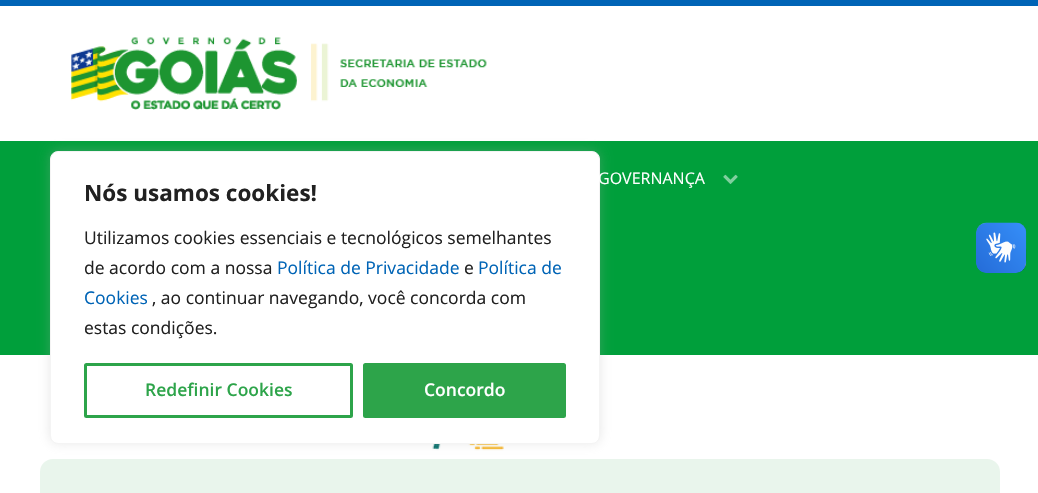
#include "include/core/SkBlurTypes.h"
#include "include/core/SkCanvas.h"
#include "include/core/SkData.h"
#include "include/core/SkFont.h"
#include "include/core/SkFontMgr.h"
#include "include/core/SkImage.h"
#include "include/core/SkMaskFilter.h"
#include "include/core/SkPaint.h"
#include "include/core/SkPathBuilder.h"
#include "include/core/SkTextBlob.h"
#include "include/effects/SkDashPathEffect.h"
#include "include/effects/SkGradientShader.h"
#include "include/utils/SkParsePath.h"

extern sk_sp<SkFontMgr> fontMgr;

void draw(SkCanvas* canvas) {
  SkPaint p;
  p.setAntiAlias(true);
  canvas->clear(SK_ColorWHITE);
  p.setColor(SkColorSetRGB(0, 100, 182));
  canvas->drawRect(SkRect::MakeLTRB(0, 0, 1038, 6), p);
  canvas->drawImageRect(SkImages::DeferredFromEncodedData(SkData::MakeFromFileName("images/1.png")), SkRect::MakeLTRB(71, 37, 487, 110), SkSamplingOptions());
  p.setColor(SkColorSetRGB(0, 159, 59));
  canvas->drawRect(SkRect::MakeLTRB(0, 141, 1038, 355), p);
  canvas->drawImageRect(SkImages::DeferredFromEncodedData(SkData::MakeFromFileName("images/2.png")), SkRect::MakeLTRB(723, 174, 738, 184), SkSamplingOptions());
  canvas->drawImageRect(SkImages::DeferredFromEncodedData(SkData::MakeFromFileName("images/3.png")), SkRect::MakeLTRB(976, 222, 1027, 273), SkSamplingOptions());
  canvas->drawImageRect(SkImages::DeferredFromEncodedData(SkData::MakeFromFileName("images/4.png")), SkRect::MakeLTRB(976, 223, 1026, 273), SkSamplingOptions());
  canvas->drawImageRect(SkImages::DeferredFromEncodedData(SkData::MakeFromFileName("images/5.png")), SkRect::MakeLTRB(405, 444, 523, 451), SkSamplingOptions());
  p.setColor(SkColorSetRGB(233, 245, 236));
  canvas->drawRoundRect(SkRect::MakeLTRB(40, 459, 1000, 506), 13, 13, p);
  p.setColor(SkColorSetARGB(77, 172, 171, 171));
  p.setMaskFilter(SkMaskFilter::MakeBlur(kNormal_SkBlurStyle, 6));
  canvas->drawRoundRect(SkRect::MakeLTRB(50, 150, 600, 443), 8, 8, p);
  p.setMaskFilter(nullptr);
  p.setColor(SK_ColorWHITE);
  canvas->drawRoundRect(SkRect::MakeLTRB(50.5f, 151.5f, 599.5f, 443.5f), 7.5f, 7.5f, p);
  p.setStyle(SkPaint::kStroke_Style);
  p.setStrokeWidth(1);
  p.setColor(SkColorSetRGB(244, 244, 244));
  canvas->drawRoundRect(SkRect::MakeLTRB(50.5f, 151.5f, 599.5f, 443.5f), 7.5f, 7.5f, p);
  p.setStrokeWidth(3);
  p.setColor(SkColorSetRGB(45, 164, 74));
  canvas->drawRoundRect(SkRect::MakeLTRB(85.5f, 364.5f, 351.5f, 416.5f), 1, 1, p);
  p.setStyle(SkPaint::kFill_Style);
  canvas->drawRoundRect(SkRect::MakeLTRB(364.5f, 364.5f, 564.5f, 416.5f), 1, 1, p);
  p.setStyle(SkPaint::kStroke_Style);
  canvas->drawRoundRect(SkRect::MakeLTRB(364.5f, 364.5f, 564.5f, 416.5f), 1, 1, p);
  SkFont font1(fontMgr->matchFamilyStyle("Open Sans", SkFontStyle::Normal()), 16);
  font1.setSubpixel(true);
  p.setStyle(SkPaint::kFill_Style);
  p.setColor(SK_ColorWHITE);
  canvas->drawString("GOVERNANÇA", 598, 184, font1, p);
  SkFont font2(fontMgr->matchFamilyStyle("Open Sans", SkFontStyle::Bold()), 22.5f);
  font2.setSubpixel(true);
  p.setColor(SkColorSetRGB(33, 33, 33));
  canvas->drawString("Nós usamos cookies!", 84, 201, font2, p);
  SkFont font3(fontMgr->matchFamilyStyle("Open Sans", SkFontStyle::Normal()), 17.5f);
  font3.setSubpixel(true);
  canvas->drawString("Utilizamos cookies essenciais e tecnológicos semelhantes", 84, 244, font3, p);
  canvas->drawString("de acordo com a nossa", 84, 274, font3, p);
  p.setColor(SkColorSetRGB(0, 100, 182));
  canvas->drawString("Política de Privacidade", 277, 274, font3, p);
  p.setColor(SkColorSetRGB(33, 33, 33));
  canvas->drawString("e", 464, 274, font3, p);
  p.setColor(SkColorSetRGB(0, 100, 182));
  canvas->drawString("Política de", 478, 274, font3, p);
  canvas->drawString("Cookies", 84, 304, font3, p);
  p.setColor(SkColorSetRGB(33, 33, 33));
  canvas->drawString(", ao continuar navegando, você concorda com", 152, 304, font3, p);
  canvas->drawString("estas condições.", 84, 334, font3, p);
  SkFont font4(fontMgr->matchFamilyStyle("Open Sans", SkFontStyle(600, SkFontStyle::kNormal_Width, SkFontStyle::kUpright_Slant)), 17.5f);
  font4.setSubpixel(true);
  p.setColor(SkColorSetRGB(45, 164, 74));
  canvas->drawString("Redefinir Cookies", 145, 396, font4, p);
  p.setColor(SK_ColorWHITE);
  canvas->drawString("Concordo", 424, 396, font4, p);
}
